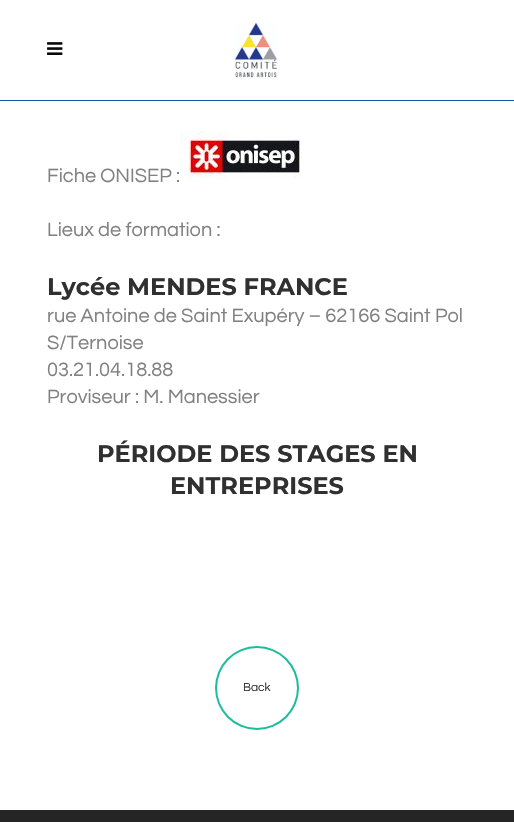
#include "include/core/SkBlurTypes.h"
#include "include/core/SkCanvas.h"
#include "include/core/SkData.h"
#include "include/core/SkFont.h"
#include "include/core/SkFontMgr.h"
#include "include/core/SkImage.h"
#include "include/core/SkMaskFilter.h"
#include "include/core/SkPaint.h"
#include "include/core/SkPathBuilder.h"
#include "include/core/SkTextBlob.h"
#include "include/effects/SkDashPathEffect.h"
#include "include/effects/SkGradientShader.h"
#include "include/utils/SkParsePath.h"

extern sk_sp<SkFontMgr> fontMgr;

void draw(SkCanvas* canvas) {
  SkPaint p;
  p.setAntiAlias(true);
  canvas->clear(SK_ColorWHITE);
  p.setColor(SkColorSetRGB(20, 90, 169));
  canvas->drawRect(SkRect::MakeLTRB(0, 100, 514, 101), p);
  canvas->drawImageRect(SkImages::DeferredFromEncodedData(SkData::MakeFromFileName("images/1.png")), SkRect::MakeLTRB(47, 42, 63, 55), SkSamplingOptions());
  canvas->drawImageRect(SkImages::DeferredFromEncodedData(SkData::MakeFromFileName("images/2.png")), SkRect::MakeLTRB(234, 22, 278, 78), SkSamplingOptions());
  canvas->drawImageRect(SkImages::DeferredFromEncodedData(SkData::MakeFromFileName("images/3.png")), SkRect::MakeLTRB(180, 131, 300, 180), SkSamplingOptions());
  p.setColor(SkColorSetRGB(26, 188, 156));
  canvas->drawCircle(257, 688, 42, p);
  p.setColor(SK_ColorWHITE);
  canvas->drawCircle(257, 688, 40, p);
  p.setColor(SkColorSetRGB(37, 37, 37));
  canvas->drawRect(SkRect::MakeLTRB(0, 810, 514, 822), p);
  SkFont font1(fontMgr->matchFamilyStyle("Questrial", SkFontStyle::Normal()), 20);
  font1.setSubpixel(true);
  p.setColor(SkColorSetRGB(129, 129, 129));
  canvas->drawString("Fiche ONISEP :", 47, 182, font1, p);
  canvas->drawString("Lieux de formation :", 47, 236, font1, p);
  SkFont font2(fontMgr->matchFamilyStyle("Montserrat", SkFontStyle::Bold()), 24);
  font2.setSubpixel(true);
  p.setColor(SkColorSetRGB(48, 48, 48));
  canvas->drawString("Lycée MENDES FRANCE", 47, 295, font2, p);
  p.setColor(SkColorSetRGB(129, 129, 129));
  canvas->drawString("rue Antoine de Saint Exupéry – 62166 Saint Pol", 47, 322, font1, p);
  canvas->drawString("S/Ternoise", 47, 349, font1, p);
  canvas->drawString("03.21.04.18.88", 47, 376, font1, p);
  canvas->drawString("Proviseur : M. Manessier", 47, 403, font1, p);
  p.setColor(SkColorSetRGB(48, 48, 48));
  canvas->drawString("PÉRIODE DES STAGES EN", 97, 462, font2, p);
  canvas->drawString("ENTREPRISES", 170, 494, font2, p);
  SkFont font3(fontMgr->matchFamilyStyle("Questrial", SkFontStyle::Normal()), 12);
  font3.setSubpixel(true);
  canvas->drawString("Back", 243, 691, font3, p);
}
